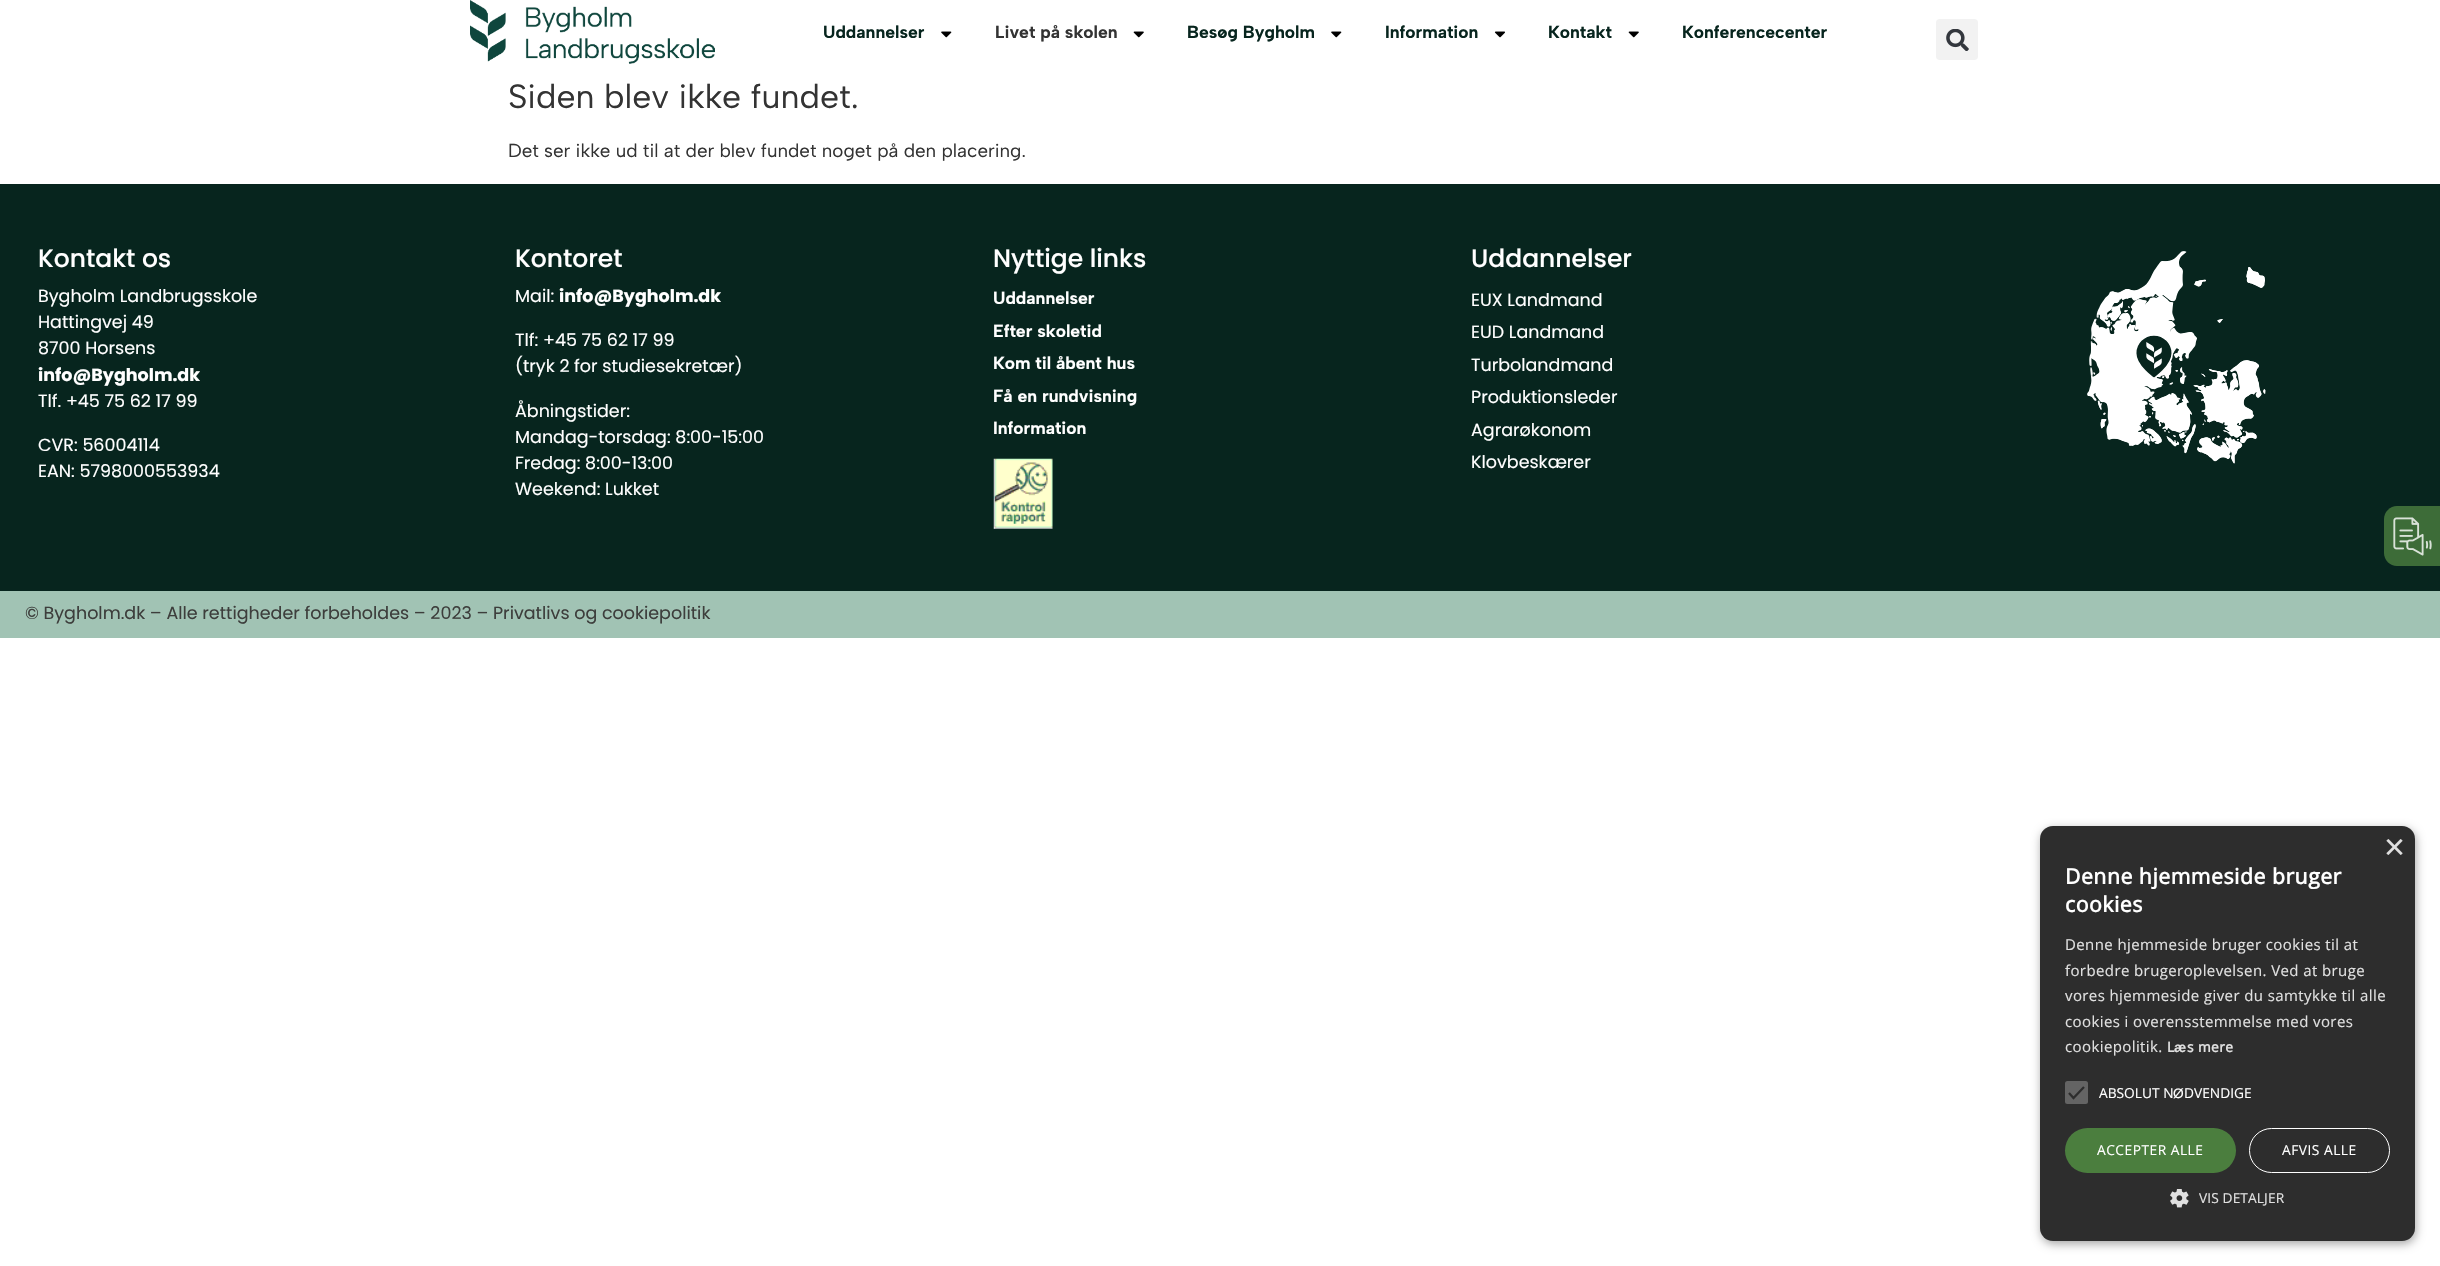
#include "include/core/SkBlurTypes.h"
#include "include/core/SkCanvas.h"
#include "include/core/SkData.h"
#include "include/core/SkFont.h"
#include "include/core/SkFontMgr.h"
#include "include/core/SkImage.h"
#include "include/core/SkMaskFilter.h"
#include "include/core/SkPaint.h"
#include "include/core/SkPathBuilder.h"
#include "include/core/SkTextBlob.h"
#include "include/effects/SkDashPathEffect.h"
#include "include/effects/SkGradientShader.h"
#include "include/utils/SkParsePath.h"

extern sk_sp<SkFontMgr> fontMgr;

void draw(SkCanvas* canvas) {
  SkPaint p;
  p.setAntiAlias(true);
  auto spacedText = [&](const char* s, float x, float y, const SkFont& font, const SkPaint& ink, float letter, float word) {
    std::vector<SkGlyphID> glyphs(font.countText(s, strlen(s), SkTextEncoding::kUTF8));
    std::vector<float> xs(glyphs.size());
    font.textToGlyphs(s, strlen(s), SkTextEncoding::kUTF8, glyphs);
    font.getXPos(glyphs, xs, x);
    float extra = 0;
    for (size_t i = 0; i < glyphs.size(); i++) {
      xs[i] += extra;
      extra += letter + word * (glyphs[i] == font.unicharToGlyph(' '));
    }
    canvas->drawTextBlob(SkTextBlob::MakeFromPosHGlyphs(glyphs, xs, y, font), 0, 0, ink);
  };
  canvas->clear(SK_ColorWHITE);
  canvas->drawImageRect(SkImages::DeferredFromEncodedData(SkData::MakeFromFileName("images/1.png")), SkRect::MakeLTRB(470, 0, 715, 64), SkSamplingOptions());
  canvas->drawImageRect(SkImages::DeferredFromEncodedData(SkData::MakeFromFileName("images/2.png")), SkRect::MakeLTRB(941, 31, 952, 38), SkSamplingOptions());
  canvas->drawImageRect(SkImages::DeferredFromEncodedData(SkData::MakeFromFileName("images/3.png")), SkRect::MakeLTRB(1133, 31, 1144, 38), SkSamplingOptions());
  canvas->drawImageRect(SkImages::DeferredFromEncodedData(SkData::MakeFromFileName("images/2.png")), SkRect::MakeLTRB(1331, 31, 1342, 38), SkSamplingOptions());
  canvas->drawImageRect(SkImages::DeferredFromEncodedData(SkData::MakeFromFileName("images/4.png")), SkRect::MakeLTRB(1494, 31, 1505, 38), SkSamplingOptions());
  canvas->drawImageRect(SkImages::DeferredFromEncodedData(SkData::MakeFromFileName("images/3.png")), SkRect::MakeLTRB(1628, 31, 1639, 38), SkSamplingOptions());
  p.setColor(SkColorSetRGB(242, 242, 242));
  canvas->drawRoundRect(SkRect::MakeLTRB(1936, 19, 1978, 60), 4, 4, p);
  canvas->drawImageRect(SkImages::DeferredFromEncodedData(SkData::MakeFromFileName("images/5.png")), SkRect::MakeLTRB(1946, 29, 1969, 51), SkSamplingOptions());
  p.setColor(SkColorSetRGB(7, 37, 30));
  canvas->drawRect(SkRect::MakeLTRB(0, 184, 2440, 591), p);
  canvas->drawImageRect(SkImages::DeferredFromEncodedData(SkData::MakeFromFileName("images/6.png")), SkRect::MakeLTRB(993, 458, 1053, 529), SkSamplingOptions());
  canvas->drawImageRect(SkImages::DeferredFromEncodedData(SkData::MakeFromFileName("images/7.png")), SkRect::MakeLTRB(2087, 251, 2266, 464), SkSamplingOptions());
  p.setColor(SkColorSetRGB(161, 195, 180));
  canvas->drawRect(SkRect::MakeLTRB(0, 591, 2440, 638), p);
  p.setColor(SkColorSetRGB(61, 108, 56));
  canvas->drawPath(SkPathBuilder().moveTo(2397, 506).lineTo(2440, 506).lineTo(2440, 566).lineTo(2397, 566).cubicTo(2390, 566, 2384, 560, 2384, 553).lineTo(2384, 519).cubicTo(2384, 512, 2390, 506, 2397, 506).close().detach(), p);
  canvas->drawImageRect(SkImages::DeferredFromEncodedData(SkData::MakeFromFileName("images/8.png")), SkRect::MakeLTRB(2393, 517, 2432, 556), SkSamplingOptions());
  p.setColor(SkColorSetARGB(89, 0, 0, 0));
  p.setMaskFilter(SkMaskFilter::MakeBlur(kNormal_SkBlurStyle, 5));
  canvas->drawRoundRect(SkRect::MakeLTRB(2041, 829, 2416, 1244), 13, 13, p);
  p.setMaskFilter(nullptr);
  p.setColor(SkColorSetRGB(45, 45, 45));
  canvas->drawRoundRect(SkRect::MakeLTRB(2040, 826, 2415, 1241), 13, 13, p);
  p.setColor(SkColorSetRGB(100, 100, 100));
  canvas->drawRoundRect(SkRect::MakeLTRB(2065, 1081, 2088, 1104), 2.5f, 2.5f, p);
  p.setStyle(SkPaint::kStroke_Style);
  p.setStrokeWidth(2.3f);
  p.setColor(SkColorSetRGB(45, 45, 45));
  canvas->drawPath(SkPathBuilder().moveTo(2069, 1093).lineTo(2073.5f, 1098).lineTo(2084, 1087).detach(), p);
  p.setStyle(SkPaint::kFill_Style);
  p.setColor(SkColorSetRGB(75, 126, 62));
  canvas->drawRoundRect(SkRect::MakeLTRB(2065, 1128, 2236, 1173), 22.5f, 22.5f, p);
  p.setStyle(SkPaint::kStroke_Style);
  p.setStrokeWidth(1);
  p.setColor(SK_ColorWHITE);
  canvas->drawRoundRect(SkRect::MakeLTRB(2249.5f, 1128.5f, 2389.5f, 1172.5f), 22, 22, p);
  canvas->drawImageRect(SkImages::DeferredFromEncodedData(SkData::MakeFromFileName("images/9.png")), SkRect::MakeLTRB(2170, 1189, 2189, 1208), SkSamplingOptions());
  SkFont font1(fontMgr->matchFamilyStyle("Albert Sans", SkFontStyle::Bold()), 17.5f);
  font1.setSubpixel(true);
  p.setStyle(SkPaint::kFill_Style);
  p.setColor(SkColorSetRGB(7, 37, 30));
  canvas->drawString("Uddannelser", 823, 38, font1, p);
  p.setColor(SkColorSetRGB(51, 51, 51));
  canvas->drawString("Livet på skolen", 995, 38, font1, p);
  p.setColor(SkColorSetRGB(7, 37, 30));
  canvas->drawString("Besøg Bygholm", 1187, 38, font1, p);
  canvas->drawString("Information", 1385, 38, font1, p);
  canvas->drawString("Kontakt", 1548, 38, font1, p);
  canvas->drawString("Konferencecenter", 1682, 38, font1, p);
  SkFont font2(fontMgr->matchFamilyStyle("Albert Sans", SkFontStyle::Normal()), 33.75f);
  font2.setSubpixel(true);
  p.setColor(SkColorSetRGB(51, 51, 51));
  canvas->drawString("Siden blev ikke fundet.", 508, 108, font2, p);
  SkFont font3(fontMgr->matchFamilyStyle("Albert Sans", SkFontStyle::Normal()), 18.75f);
  font3.setSubpixel(true);
  canvas->drawString("Det ser ikke ud til at der blev fundet noget på den placering.", 508, 157, font3, p);
  SkFont font4(fontMgr->matchFamilyStyle("Poppins", SkFontStyle(500, SkFontStyle::kNormal_Width, SkFontStyle::kUpright_Slant)), 25);
  font4.setSubpixel(true);
  p.setColor(SK_ColorWHITE);
  canvas->drawString("Kontakt os", 38, 267, font4, p);
  SkFont font5(fontMgr->matchFamilyStyle("Poppins", SkFontStyle::Normal()), 17.5f);
  font5.setSubpixel(true);
  canvas->drawString("Bygholm Landbrugsskole", 38, 302, font5, p);
  canvas->drawString("Hattingvej 49", 38, 328, font5, p);
  canvas->drawString("8700 Horsens", 38, 354, font5, p);
  SkFont font6(fontMgr->matchFamilyStyle("Poppins", SkFontStyle::Bold()), 17.5f);
  font6.setSubpixel(true);
  canvas->drawString("info@Bygholm.dk", 38, 381, font6, p);
  canvas->drawString("Tlf. +45 75 62 17 99", 38, 407, font5, p);
  canvas->drawString("CVR: 56004114", 38, 451, font5, p);
  canvas->drawString("EAN: 5798000553934", 38, 477, font5, p);
  canvas->drawString("Kontoret", 515, 267, font4, p);
  canvas->drawString("Mail:", 515, 302, font5, p);
  canvas->drawString("info@Bygholm.dk", 559, 302, font6, p);
  canvas->drawString("Tlf: +45 75 62 17 99", 515, 346, font5, p);
  canvas->drawString("(tryk 2 for studiesekretær)", 515, 372, font5, p);
  canvas->drawString("Åbningstider:", 515, 417, font5, p);
  canvas->drawString("Mandag-torsdag: 8:00-15:00", 515, 443, font5, p);
  canvas->drawString("Fredag: 8:00-13:00", 515, 469, font5, p);
  canvas->drawString("Weekend: Lukket", 515, 495, font5, p);
  canvas->drawString("Nyttige links", 993, 267, font4, p);
  canvas->drawString("Uddannelser", 993, 304, font1, p);
  canvas->drawString("Efter skoletid", 993, 337, font1, p);
  canvas->drawString("Kom til åbent hus", 993, 369, font1, p);
  canvas->drawString("Få en rundvisning", 993, 402, font1, p);
  canvas->drawString("Information", 993, 434, font1, p);
  canvas->drawString("Uddannelser", 1471, 267, font4, p);
  canvas->drawString("EUX Landmand", 1471, 306, font5, p);
  canvas->drawString("EUD Landmand", 1471, 338, font5, p);
  canvas->drawString("Turbolandmand", 1471, 371, font5, p);
  canvas->drawString("Produktionsleder", 1471, 403, font5, p);
  canvas->drawString("Agrarøkonom", 1471, 436, font5, p);
  canvas->drawString("Klovbeskærer", 1471, 468, font5, p);
  p.setColor(SkColorSetRGB(61, 62, 60));
  canvas->drawString("© Bygholm.dk – Alle rettigheder forbeholdes – 2023 – Privatlivs og cookiepolitik", 25, 619, font5, p);
  SkFont font7(fontMgr->matchFamilyStyle("Liberation Sans", SkFontStyle::Normal()), 36);
  font7.setSubpixel(true);
  p.setColor(SkColorSetRGB(224, 224, 224));
  canvas->drawString("×", 2384, 859, font7, p);
  SkFont font8(fontMgr->matchFamilyStyle("Open Sans", SkFontStyle::Bold()), 21.25f);
  font8.setSubpixel(true);
  p.setColor(SK_ColorWHITE);
  spacedText("Denne hjemmeside bruger", 2065, 884, font8, p, 0.5f, 0);
  spacedText("cookies", 2065, 912, font8, p, 0.5f, 0);
  SkFont font9(fontMgr->matchFamilyStyle("Open Sans", SkFontStyle::Normal()), 15);
  font9.setSubpixel(true);
  p.setColor(SkColorSetRGB(224, 224, 224));
  spacedText("Denne hjemmeside bruger cookies til at", 2065, 950, font9, p, 0.4f, 0);
  spacedText("forbedre brugeroplevelsen. Ved at bruge", 2065, 976, font9, p, 0.4f, 0);
  spacedText("vores hjemmeside giver du samtykke til alle", 2065, 1001, font9, p, 0.4f, 0);
  spacedText("cookies i overensstemmelse med vores", 2065, 1027, font9, p, 0.4f, 0);
  spacedText("cookiepolitik.", 2065, 1052, font9, p, 0.4f, 0);
  SkFont font10(fontMgr->matchFamilyStyle("Open Sans", SkFontStyle::Bold()), 13.75f);
  font10.setSubpixel(true);
  spacedText("L", 2167, 1052, font10, p, 0.4f, 0);
  SkFont font11(fontMgr->matchFamilyStyle("Liberation Sans", SkFontStyle::Bold()), 13.75f);
  font11.setSubpixel(true);
  spacedText("æ", 2174, 1052, font11, p, 0.4f, 0);
  spacedText("s mere", 2187, 1052, font10, p, 0.4f, 0);
  SkFont font12(fontMgr->matchFamilyStyle("Open Sans", SkFontStyle::Normal()), 13.75f);
  font12.setSubpixel(true);
  p.setColor(SK_ColorWHITE);
  canvas->drawString("ABSOLUT N", 2099, 1098, font12, p);
  SkFont font13(fontMgr->matchFamilyStyle("Liberation Sans", SkFontStyle::Normal()), 13.75f);
  font13.setSubpixel(true);
  canvas->drawString("Ø", 2173, 1098, font13, p);
  canvas->drawString("DVENDIGE", 2184, 1098, font12, p);
  spacedText("ACCEPTER ALLE", 2097, 1155, font12, p, 0.5f, 0);
  spacedText("AFVIS ALLE", 2282, 1155, font12, p, 0.5f, 0);
  p.setColor(SkColorSetRGB(224, 224, 224));
  spacedText("VIS DETALJER", 2199, 1203, font12, p, 0.1f, 0);
}
